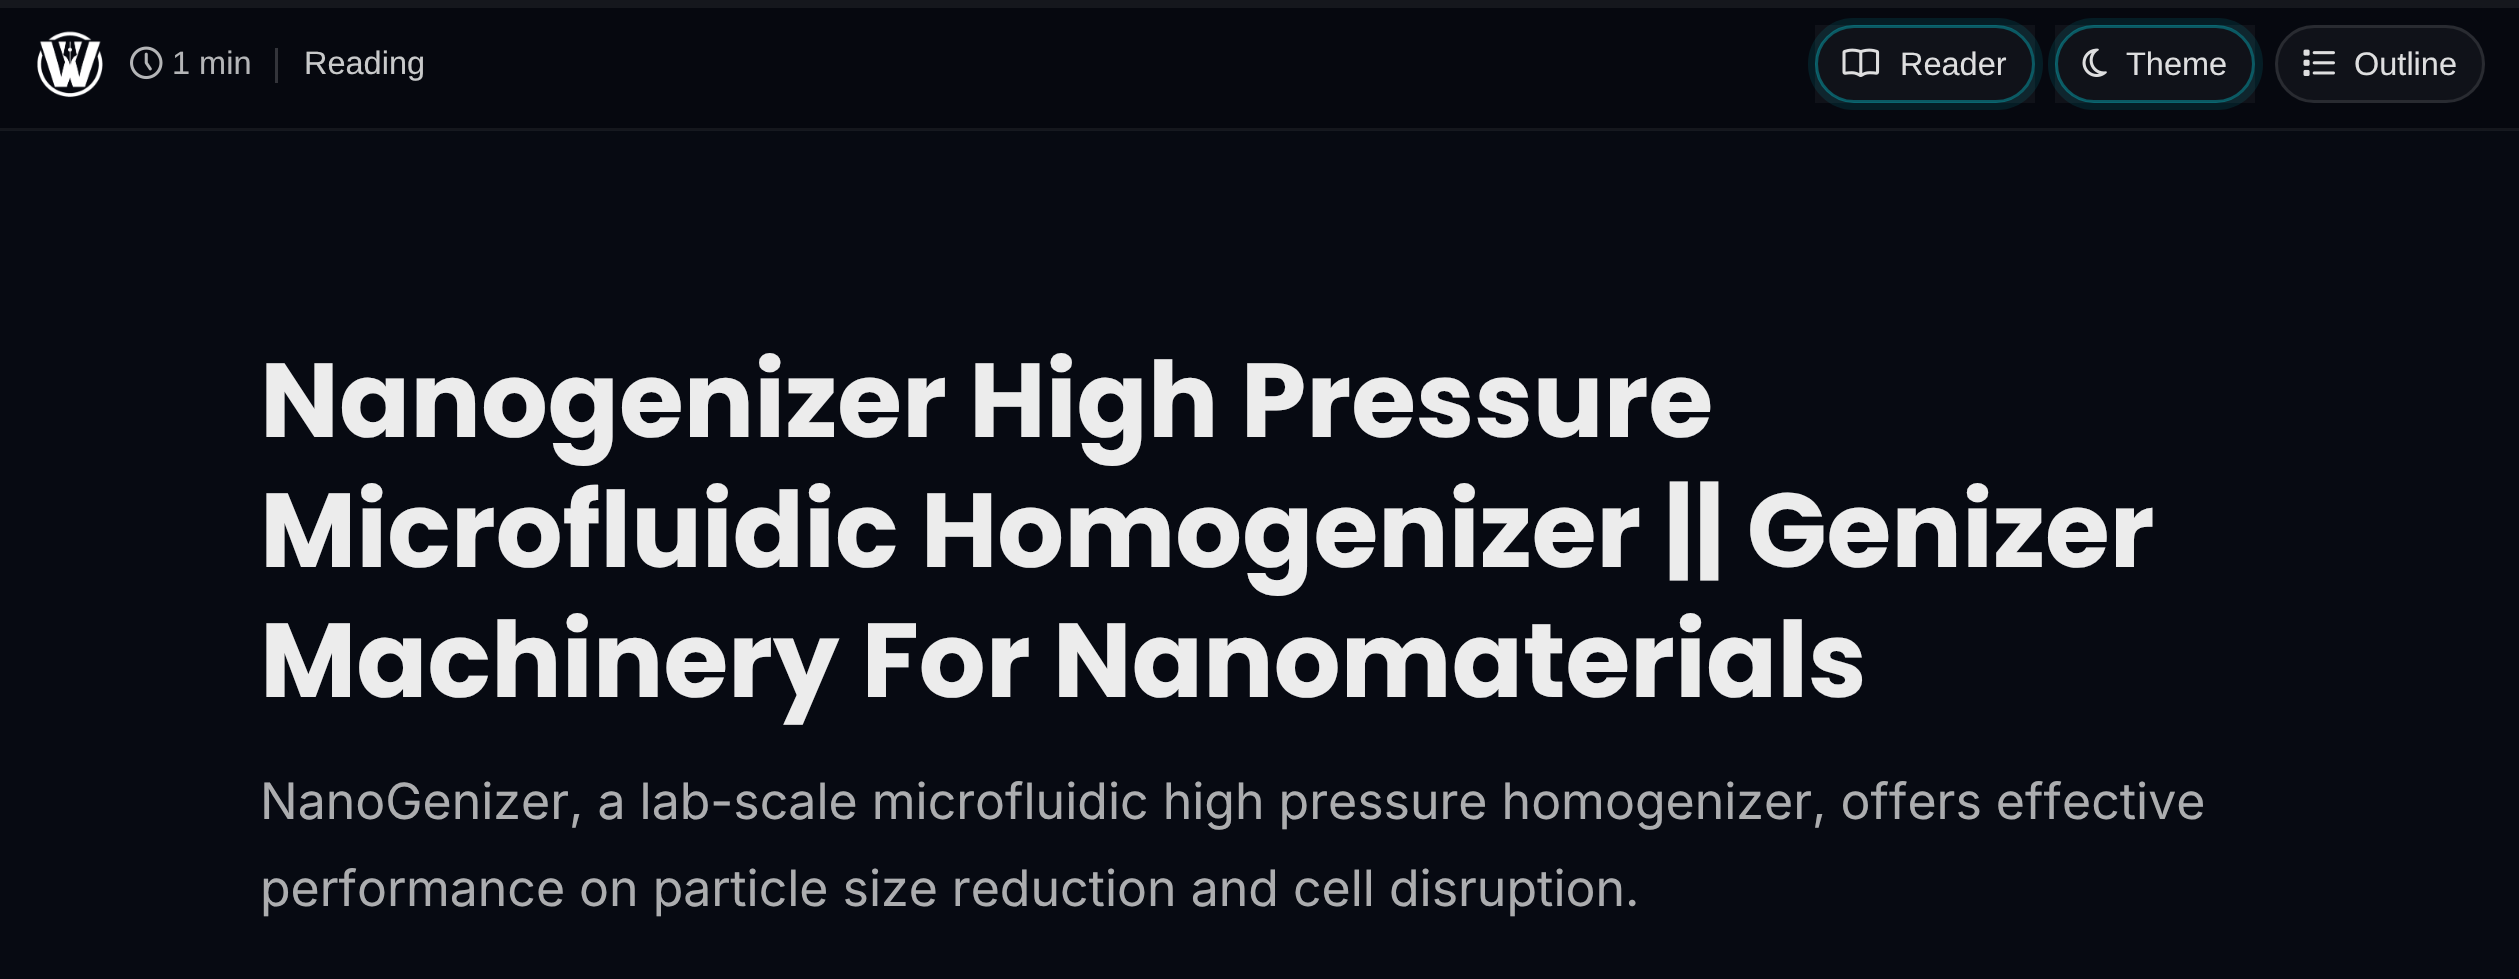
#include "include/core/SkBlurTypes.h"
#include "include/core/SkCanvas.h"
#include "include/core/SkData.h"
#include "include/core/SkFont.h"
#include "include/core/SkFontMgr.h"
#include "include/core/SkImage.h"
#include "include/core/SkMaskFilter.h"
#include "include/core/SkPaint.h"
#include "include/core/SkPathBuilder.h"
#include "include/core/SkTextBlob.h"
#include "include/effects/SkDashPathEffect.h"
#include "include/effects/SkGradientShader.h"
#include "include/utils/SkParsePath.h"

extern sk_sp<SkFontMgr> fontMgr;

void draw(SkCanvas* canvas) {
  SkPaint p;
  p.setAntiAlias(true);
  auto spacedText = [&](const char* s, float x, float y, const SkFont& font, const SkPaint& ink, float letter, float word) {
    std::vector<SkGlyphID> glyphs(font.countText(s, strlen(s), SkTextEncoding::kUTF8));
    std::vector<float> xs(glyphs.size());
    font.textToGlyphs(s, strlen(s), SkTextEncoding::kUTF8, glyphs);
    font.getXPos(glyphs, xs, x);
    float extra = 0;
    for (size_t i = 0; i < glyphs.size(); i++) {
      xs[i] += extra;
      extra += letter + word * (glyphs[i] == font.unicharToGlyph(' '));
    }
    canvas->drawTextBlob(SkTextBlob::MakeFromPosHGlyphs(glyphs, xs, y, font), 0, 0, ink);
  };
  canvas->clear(SkColorSetRGB(7, 10, 18));
  p.setColor(SkColorSetRGB(22, 25, 32));
  canvas->drawRect(SkRect::MakeLTRB(0, 130, 2519, 131), p);
  p.setColor(SkColorSetRGB(21, 23, 29));
  canvas->drawRect(SkRect::MakeLTRB(0, 0, 2519, 8), p);
  p.setColor(SkColorSetRGB(6, 8, 15));
  canvas->drawRect(SkRect::MakeLTRB(0, 8, 2519, 128), p);
  p.setColor(SkColorSetRGB(21, 23, 29));
  canvas->drawRect(SkRect::MakeLTRB(0, 128, 2519, 130), p);
  canvas->drawImageRect(SkImages::DeferredFromEncodedData(SkData::MakeFromFileName("images/1.png")), SkRect::MakeLTRB(37, 31, 103, 98), SkSamplingOptions());
  canvas->drawImageRect(SkImages::DeferredFromEncodedData(SkData::MakeFromFileName("images/2.png")), SkRect::MakeLTRB(130, 46, 163, 80), SkSamplingOptions());
  p.setColor(SkColorSetRGB(51, 52, 58));
  canvas->drawRect(SkRect::MakeLTRB(275, 48, 278, 83), p);
  p.setStyle(SkPaint::kStroke_Style);
  p.setStrokeWidth(8);
  p.setColor(SkColorSetRGB(5, 29, 37));
  canvas->drawRoundRect(SkRect::MakeLTRB(1812, 22, 2039, 106), 42, 42, p);
  p.setStyle(SkPaint::kFill_Style);
  p.setColor(SkColorSetARGB(10, 255, 255, 255));
  canvas->drawRect(SkRect::MakeLTRB(1815, 25, 2035, 103), p);
  p.setStyle(SkPaint::kStroke_Style);
  p.setStrokeWidth(3);
  p.setColor(SkColorSetARGB(89, 0, 221, 235));
  canvas->drawRoundRect(SkRect::MakeLTRB(1816.5f, 26.5f, 2033.5f, 101.5f), 37.5f, 37.5f, p);
  canvas->drawImageRect(SkImages::DeferredFromEncodedData(SkData::MakeFromFileName("images/3.png")), SkRect::MakeLTRB(1842, 48, 1880, 77), SkSamplingOptions());
  p.setStrokeWidth(8);
  p.setColor(SkColorSetRGB(5, 29, 37));
  canvas->drawRoundRect(SkRect::MakeLTRB(2052, 22, 2259, 106), 42, 42, p);
  p.setStyle(SkPaint::kFill_Style);
  p.setColor(SkColorSetARGB(10, 255, 255, 255));
  canvas->drawRect(SkRect::MakeLTRB(2055, 25, 2255, 103), p);
  p.setStyle(SkPaint::kStroke_Style);
  p.setStrokeWidth(3);
  p.setColor(SkColorSetARGB(89, 0, 221, 235));
  canvas->drawRoundRect(SkRect::MakeLTRB(2056.5f, 26.5f, 2253.5f, 101.5f), 37.5f, 37.5f, p);
  canvas->drawImageRect(SkImages::DeferredFromEncodedData(SkData::MakeFromFileName("images/4.png")), SkRect::MakeLTRB(2082, 48, 2107, 77), SkSamplingOptions());
  p.setStyle(SkPaint::kFill_Style);
  p.setColor(SkColorSetRGB(16, 18, 25));
  canvas->drawRoundRect(SkRect::MakeLTRB(2275, 25, 2485, 103), 39, 39, p);
  p.setStyle(SkPaint::kStroke_Style);
  p.setColor(SkColorSetARGB(26, 255, 255, 255));
  canvas->drawRoundRect(SkRect::MakeLTRB(2276.5f, 26.5f, 2483.5f, 101.5f), 37.5f, 37.5f, p);
  canvas->drawImageRect(SkImages::DeferredFromEncodedData(SkData::MakeFromFileName("images/5.png")), SkRect::MakeLTRB(2303, 49, 2335, 76), SkSamplingOptions());
  SkFont font1(fontMgr->matchFamilyStyle("Liberation Sans", SkFontStyle::Normal()), 32.5f);
  font1.setSubpixel(true);
  p.setStyle(SkPaint::kFill_Style);
  p.setColor(SkColorSetRGB(180, 181, 183));
  canvas->drawString("1 min", 172, 74, font1, p);
  p.setColor(SkColorSetRGB(200, 201, 202));
  canvas->drawString("Reading", 304, 74, font1, p);
  p.setColor(SkColorSetRGB(222, 222, 223));
  canvas->drawString("Reader", 1900, 75, font1, p);
  canvas->drawString("Theme", 2126, 75, font1, p);
  canvas->drawString("Outline", 2354, 75, font1, p);
  SkFont font2(fontMgr->matchFamilyStyle("Poppins", SkFontStyle::Bold()), 105);
  font2.setSubpixel(true);
  p.setColor(SkColorSetRGB(236, 236, 236));
  spacedText("Nanogenizer High Pressure", 260, 437, font2, p, -0.05f, 0);
  spacedText("Microfluidic Homogenizer || Genizer", 260, 567, font2, p, -0.05f, 0);
  spacedText("Machinery For Nanomaterials", 260, 697, font2, p, -0.05f, 0);
  SkFont font3(fontMgr->matchFamilyStyle("Inter", SkFontStyle::Normal()), 50);
  font3.setSubpixel(true);
  p.setColor(SkColorSetRGB(172, 173, 175));
  canvas->drawString("NanoGenizer, a lab-scale microfluidic high pressure homogenizer, offers effective", 260, 819, font3, p);
  canvas->drawString("performance on particle size reduction and cell disruption.", 260, 906, font3, p);
}
